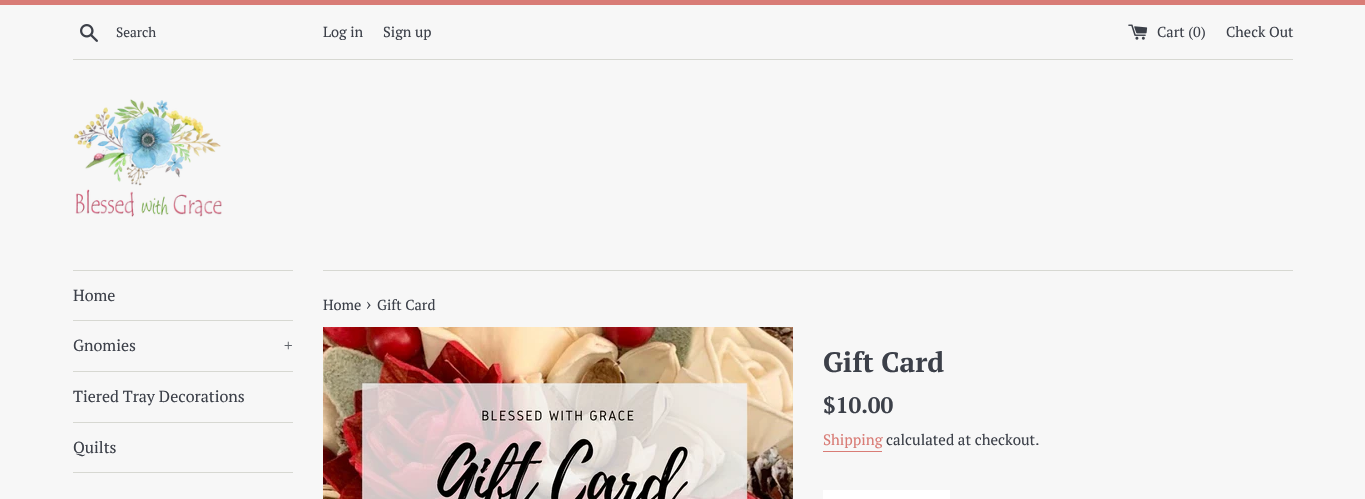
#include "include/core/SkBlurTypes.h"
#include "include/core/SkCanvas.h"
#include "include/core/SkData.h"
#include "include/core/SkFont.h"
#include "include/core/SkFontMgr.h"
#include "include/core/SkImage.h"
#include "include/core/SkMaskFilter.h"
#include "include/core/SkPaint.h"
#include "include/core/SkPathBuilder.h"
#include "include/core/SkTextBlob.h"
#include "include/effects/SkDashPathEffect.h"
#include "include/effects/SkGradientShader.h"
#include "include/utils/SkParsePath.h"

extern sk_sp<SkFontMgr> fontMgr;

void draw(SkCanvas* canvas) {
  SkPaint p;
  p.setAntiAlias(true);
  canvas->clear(SkColorSetRGB(247, 247, 247));
  p.setColor(SkColorSetRGB(217, 124, 118));
  canvas->drawRect(SkRect::MakeLTRB(0, 0, 1365, 5), p);
  canvas->drawImageRect(SkImages::DeferredFromEncodedData(SkData::MakeFromFileName("images/1.png")), SkRect::MakeLTRB(80, 24, 98, 42), SkSamplingOptions());
  canvas->drawImageRect(SkImages::DeferredFromEncodedData(SkData::MakeFromFileName("images/2.png")), SkRect::MakeLTRB(1128, 24, 1148, 40), SkSamplingOptions());
  p.setColor(SkColorSetRGB(215, 216, 210));
  canvas->drawRect(SkRect::MakeLTRB(73, 59, 1293, 60), p);
  canvas->drawImageRect(SkImages::DeferredFromEncodedData(SkData::MakeFromFileName("images/3.png")), SkRect::MakeLTRB(73, 99, 222, 217), SkSamplingOptions());
  canvas->drawRect(SkRect::MakeLTRB(73, 270, 293, 271), p);
  canvas->drawRect(SkRect::MakeLTRB(73, 320, 293, 321), p);
  canvas->drawRect(SkRect::MakeLTRB(73, 371, 293, 372), p);
  canvas->drawRect(SkRect::MakeLTRB(73, 422, 293, 423), p);
  canvas->drawRect(SkRect::MakeLTRB(73, 472, 293, 473), p);
  canvas->drawRect(SkRect::MakeLTRB(323, 270, 1293, 271), p);
  canvas->drawImageRect(SkImages::DeferredFromEncodedData(SkData::MakeFromFileName("images/4.png")), SkRect::MakeLTRB(323, 327, 793, 499), SkSamplingOptions());
  p.setColor(SkColorSetRGB(217, 124, 118));
  canvas->drawRect(SkRect::MakeLTRB(823, 451, 882, 452), p);
  p.setColor(SK_ColorWHITE);
  canvas->drawRect(SkRect::MakeLTRB(823, 490, 950, 499), p);
  SkFont font1(fontMgr->matchFamilyStyle("PT Serif", SkFontStyle::Normal()), 13.5f);
  font1.setSubpixel(true);
  p.setColor(SkColorSetRGB(60, 64, 73));
  canvas->drawString("Search", 116, 37, font1, p);
  SkFont font2(fontMgr->matchFamilyStyle("PT Serif", SkFontStyle::Normal()), 14.5f);
  font2.setSubpixel(true);
  canvas->drawString("Log in", 323, 37, font2, p);
  canvas->drawString("Sign up", 383, 37, font2, p);
  canvas->drawString("Cart (0)", 1157, 37, font2, p);
  canvas->drawString("Check Out", 1226, 37, font2, p);
  SkFont font3(fontMgr->matchFamilyStyle("PT Serif", SkFontStyle::Normal()), 16);
  font3.setSubpixel(true);
  canvas->drawString("Home", 73, 301, font3, p);
  canvas->drawString("Gnomies", 73, 351, font3, p);
  p.setColor(SkColorSetRGB(97, 101, 108));
  canvas->drawString("+", 284, 351, font3, p);
  p.setColor(SkColorSetRGB(60, 64, 73));
  canvas->drawString("Tiered Tray Decorations", 73, 402, font3, p);
  canvas->drawString("Quilts", 73, 453, font3, p);
  canvas->drawString("Home", 323, 310, font2, p);
  SkFont font4(fontMgr->matchFamilyStyle("PT Serif", SkFontStyle::Normal()), 18);
  font4.setSubpixel(true);
  canvas->drawString("›", 366, 310, font4, p);
  canvas->drawString("Gift Card", 377, 310, font2, p);
  SkFont font5(fontMgr->matchFamilyStyle("PT Serif", SkFontStyle::Bold()), 28);
  font5.setSubpixel(true);
  canvas->drawString("Gift Card", 823, 372, font5, p);
  SkFont font6(fontMgr->matchFamilyStyle("PT Serif", SkFontStyle::Bold()), 22.5f);
  font6.setSubpixel(true);
  canvas->drawString("$10.00", 823, 413, font6, p);
  SkFont font7(fontMgr->matchFamilyStyle("PT Serif", SkFontStyle::Normal()), 15);
  font7.setSubpixel(true);
  p.setColor(SkColorSetRGB(217, 124, 118));
  canvas->drawString("Shipping", 823, 445, font7, p);
  p.setColor(SkColorSetRGB(60, 64, 73));
  canvas->drawString("calculated at checkout.", 886, 445, font7, p);
}
